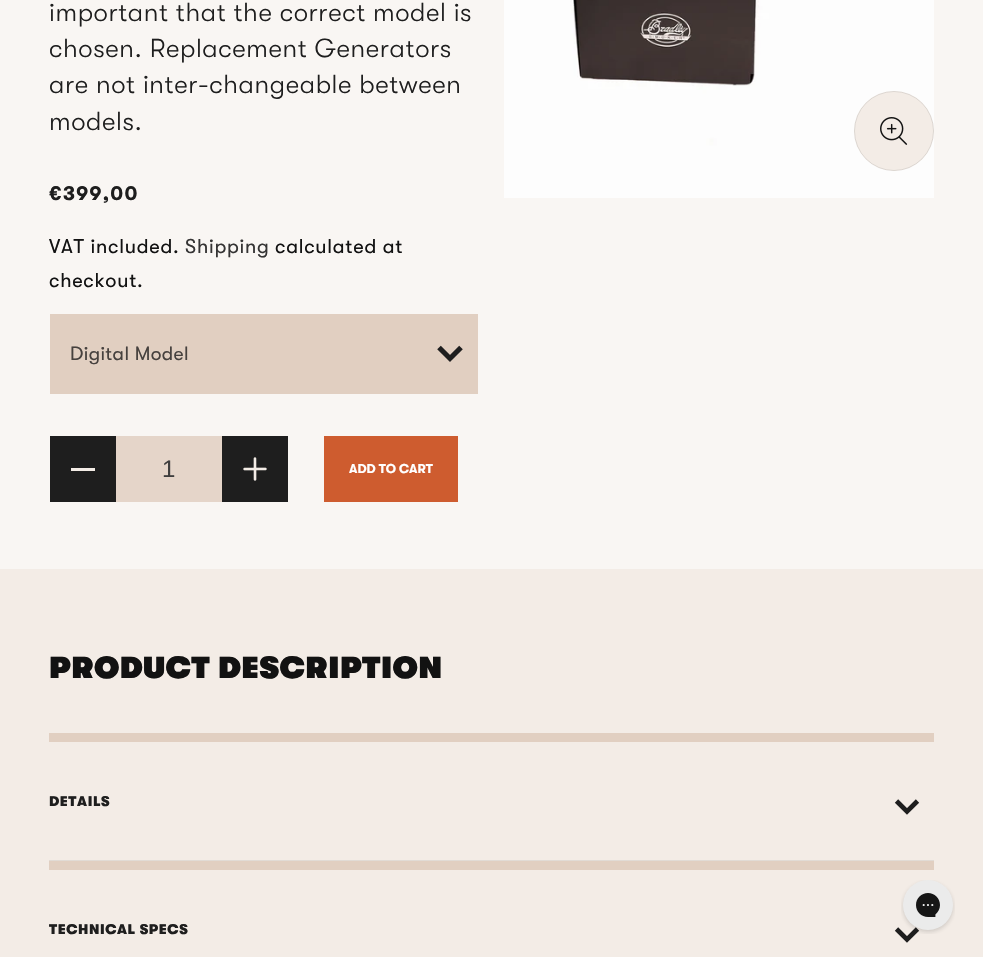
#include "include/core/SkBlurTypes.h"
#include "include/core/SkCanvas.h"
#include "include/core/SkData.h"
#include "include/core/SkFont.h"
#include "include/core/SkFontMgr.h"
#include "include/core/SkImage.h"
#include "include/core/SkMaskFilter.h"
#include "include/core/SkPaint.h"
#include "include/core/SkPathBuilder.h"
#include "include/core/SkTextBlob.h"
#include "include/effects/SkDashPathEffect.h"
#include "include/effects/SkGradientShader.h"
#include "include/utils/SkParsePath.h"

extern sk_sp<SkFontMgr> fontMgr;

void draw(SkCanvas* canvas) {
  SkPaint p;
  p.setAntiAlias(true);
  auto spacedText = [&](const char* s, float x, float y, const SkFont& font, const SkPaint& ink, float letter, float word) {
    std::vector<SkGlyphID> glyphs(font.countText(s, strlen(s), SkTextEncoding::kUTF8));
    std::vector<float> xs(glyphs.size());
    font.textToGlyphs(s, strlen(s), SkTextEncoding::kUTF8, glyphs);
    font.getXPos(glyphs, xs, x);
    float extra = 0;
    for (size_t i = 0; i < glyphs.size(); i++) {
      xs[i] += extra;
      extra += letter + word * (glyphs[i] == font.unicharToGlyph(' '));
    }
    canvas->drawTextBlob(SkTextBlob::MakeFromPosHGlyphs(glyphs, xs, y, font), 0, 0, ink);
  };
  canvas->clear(SkColorSetRGB(249, 246, 243));
  p.setColor(SkColorSetRGB(225, 207, 193));
  canvas->drawRect(SkRect::MakeLTRB(50, 314, 478, 394), p);
  p.setStyle(SkPaint::kStroke_Style);
  p.setStrokeWidth(5.1f);
  p.setColor(SkColorSetRGB(30, 30, 30));
  canvas->drawPath(SkPathBuilder().moveTo(461, 347.5f).lineTo(450, 358.5f).lineTo(439, 347.5f).detach(), p);
  p.setStyle(SkPaint::kFill_Style);
  canvas->drawRect(SkRect::MakeLTRB(50, 436, 116, 502), p);
  p.setColor(SkColorSetRGB(243, 236, 230));
  canvas->drawRect(SkRect::MakeLTRB(71, 468, 95, 471), p);
  p.setColor(SkColorSetRGB(229, 213, 201));
  canvas->drawRect(SkRect::MakeLTRB(116, 436, 222, 502), p);
  p.setColor(SkColorSetRGB(30, 30, 30));
  canvas->drawRect(SkRect::MakeLTRB(222, 436, 288, 502), p);
  canvas->drawImageRect(SkImages::DeferredFromEncodedData(SkData::MakeFromFileName("images/1.png")), SkRect::MakeLTRB(243, 457, 267, 481), SkSamplingOptions());
  p.setColor(SkColorSetRGB(206, 92, 47));
  canvas->drawRect(SkRect::MakeLTRB(324, 436, 458, 502), p);
  canvas->drawImageRect(SkImages::DeferredFromEncodedData(SkData::MakeFromFileName("images/2.png")), SkRect::MakeLTRB(504, 0, 934, 198), SkSamplingOptions());
  p.setColor(SkColorSetRGB(243, 236, 230));
  canvas->drawCircle(894, 131, 40, p);
  p.setStyle(SkPaint::kStroke_Style);
  p.setStrokeWidth(1);
  p.setColor(SkColorSetARGB(26, 18, 18, 18));
  canvas->drawCircle(894, 131, 39.5f, p);
  canvas->drawImageRect(SkImages::DeferredFromEncodedData(SkData::MakeFromFileName("images/3.png")), SkRect::MakeLTRB(880, 117, 908, 145), SkSamplingOptions());
  p.setStyle(SkPaint::kFill_Style);
  p.setColor(SkColorSetRGB(243, 236, 230));
  canvas->drawRect(SkRect::MakeLTRB(0, 569, 983, 957), p);
  p.setColor(SkColorSetRGB(225, 207, 193));
  canvas->drawRect(SkRect::MakeLTRB(49, 733, 934, 742), p);
  p.setColor(SkColorSetRGB(225, 219, 213));
  canvas->drawRect(SkRect::MakeLTRB(49, 860, 934, 861), p);
  p.setStyle(SkPaint::kStroke_Style);
  p.setStrokeWidth(4.7f);
  p.setColor(SkColorSetRGB(30, 30, 30));
  canvas->drawPath(SkPathBuilder().moveTo(917.5f, 801).lineTo(907, 811.5f).lineTo(896.5f, 801).detach(), p);
  p.setStyle(SkPaint::kFill_Style);
  p.setColor(SkColorSetRGB(225, 207, 193));
  canvas->drawRect(SkRect::MakeLTRB(49, 861, 934, 870), p);
  p.setStyle(SkPaint::kStroke_Style);
  p.setColor(SkColorSetRGB(30, 30, 30));
  canvas->drawPath(SkPathBuilder().moveTo(917.5f, 929).lineTo(907, 939.5f).lineTo(896.5f, 929).detach(), p);
  canvas->drawImageRect(SkImages::DeferredFromEncodedData(SkData::MakeFromFileName("images/4.png")), SkRect::MakeLTRB(901, 880, 955, 934), SkSamplingOptions());
  SkFont font1(fontMgr->matchFamilyStyle("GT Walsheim", SkFontStyle(300, SkFontStyle::kNormal_Width, SkFontStyle::kUpright_Slant)), 26);
  font1.setSubpixel(true);
  p.setStyle(SkPaint::kFill_Style);
  spacedText("important that the correct model is", 49, 21, font1, p, 0.6f, 0);
  spacedText("chosen. Replacement Generators", 49, 57, font1, p, 0.6f, 0);
  spacedText("are not inter-changeable between", 49, 93, font1, p, 0.6f, 0);
  spacedText("models.", 49, 130, font1, p, 0.6f, 0);
  SkFont font2(fontMgr->matchFamilyStyle("GT Walsheim", SkFontStyle::Bold()), 20);
  font2.setSubpixel(true);
  spacedText("€399,00", 49, 200, font2, p, 1.25f, 0);
  SkFont font3(fontMgr->matchFamilyStyle("GT Walsheim", SkFontStyle::Normal()), 20);
  font3.setSubpixel(true);
  p.setColor(SkColorSetRGB(18, 18, 18));
  spacedText("VAT included.", 49, 253, font3, p, 0.75f, 0);
  p.setColor(SkColorSetRGB(53, 52, 52));
  spacedText("Shipping", 185, 253, font3, p, 0.75f, 0);
  p.setColor(SkColorSetRGB(18, 18, 18));
  spacedText("calculated at", 275, 253, font3, p, 0.75f, 0);
  spacedText("checkout.", 49, 287, font3, p, 0.75f, 0);
  SkFont font4(fontMgr->matchFamilyStyle("GT Walsheim", SkFontStyle::Normal()), 19.25f);
  font4.setSubpixel(true);
  p.setColor(SkColorSetRGB(70, 65, 62));
  spacedText("Digital Model", 70, 360, font4, p, 0.4f, 0);
  SkFont font5(fontMgr->matchFamilyStyle("Liberation Sans", SkFontStyle::Normal()), 24);
  font5.setSubpixel(true);
  p.setColor(SkColorSetRGB(63, 62, 62));
  canvas->drawString("1", 162, 477, font5, p);
  SkFont font6(fontMgr->matchFamilyStyle("GT Walsheim", SkFontStyle::Bold()), 12.75f);
  font6.setSubpixel(true);
  p.setColor(SK_ColorWHITE);
  canvas->drawString("ADD TO CART", 349, 473, font6, p);
  SkFont font7(fontMgr->matchFamilyStyle("GT Walsheim", SkFontStyle(900, SkFontStyle::kNormal_Width, SkFontStyle::kUpright_Slant)), 30.5f);
  font7.setSubpixel(true);
  p.setColor(SkColorSetRGB(18, 18, 18));
  spacedText("PRODUCT DESCRIPTION", 49, 678, font7, p, 0.6f, 0);
  SkFont font8(fontMgr->matchFamilyStyle("GT Walsheim", SkFontStyle(800, SkFontStyle::kNormal_Width, SkFontStyle::kUpright_Slant)), 14);
  font8.setSubpixel(true);
  p.setColor(SkColorSetRGB(30, 30, 30));
  spacedText("DETAILS", 49, 806, font8, p, 0.6f, 0);
  spacedText("TECHNICAL SPECS", 49, 934, font8, p, 0.6f, 0);
}
